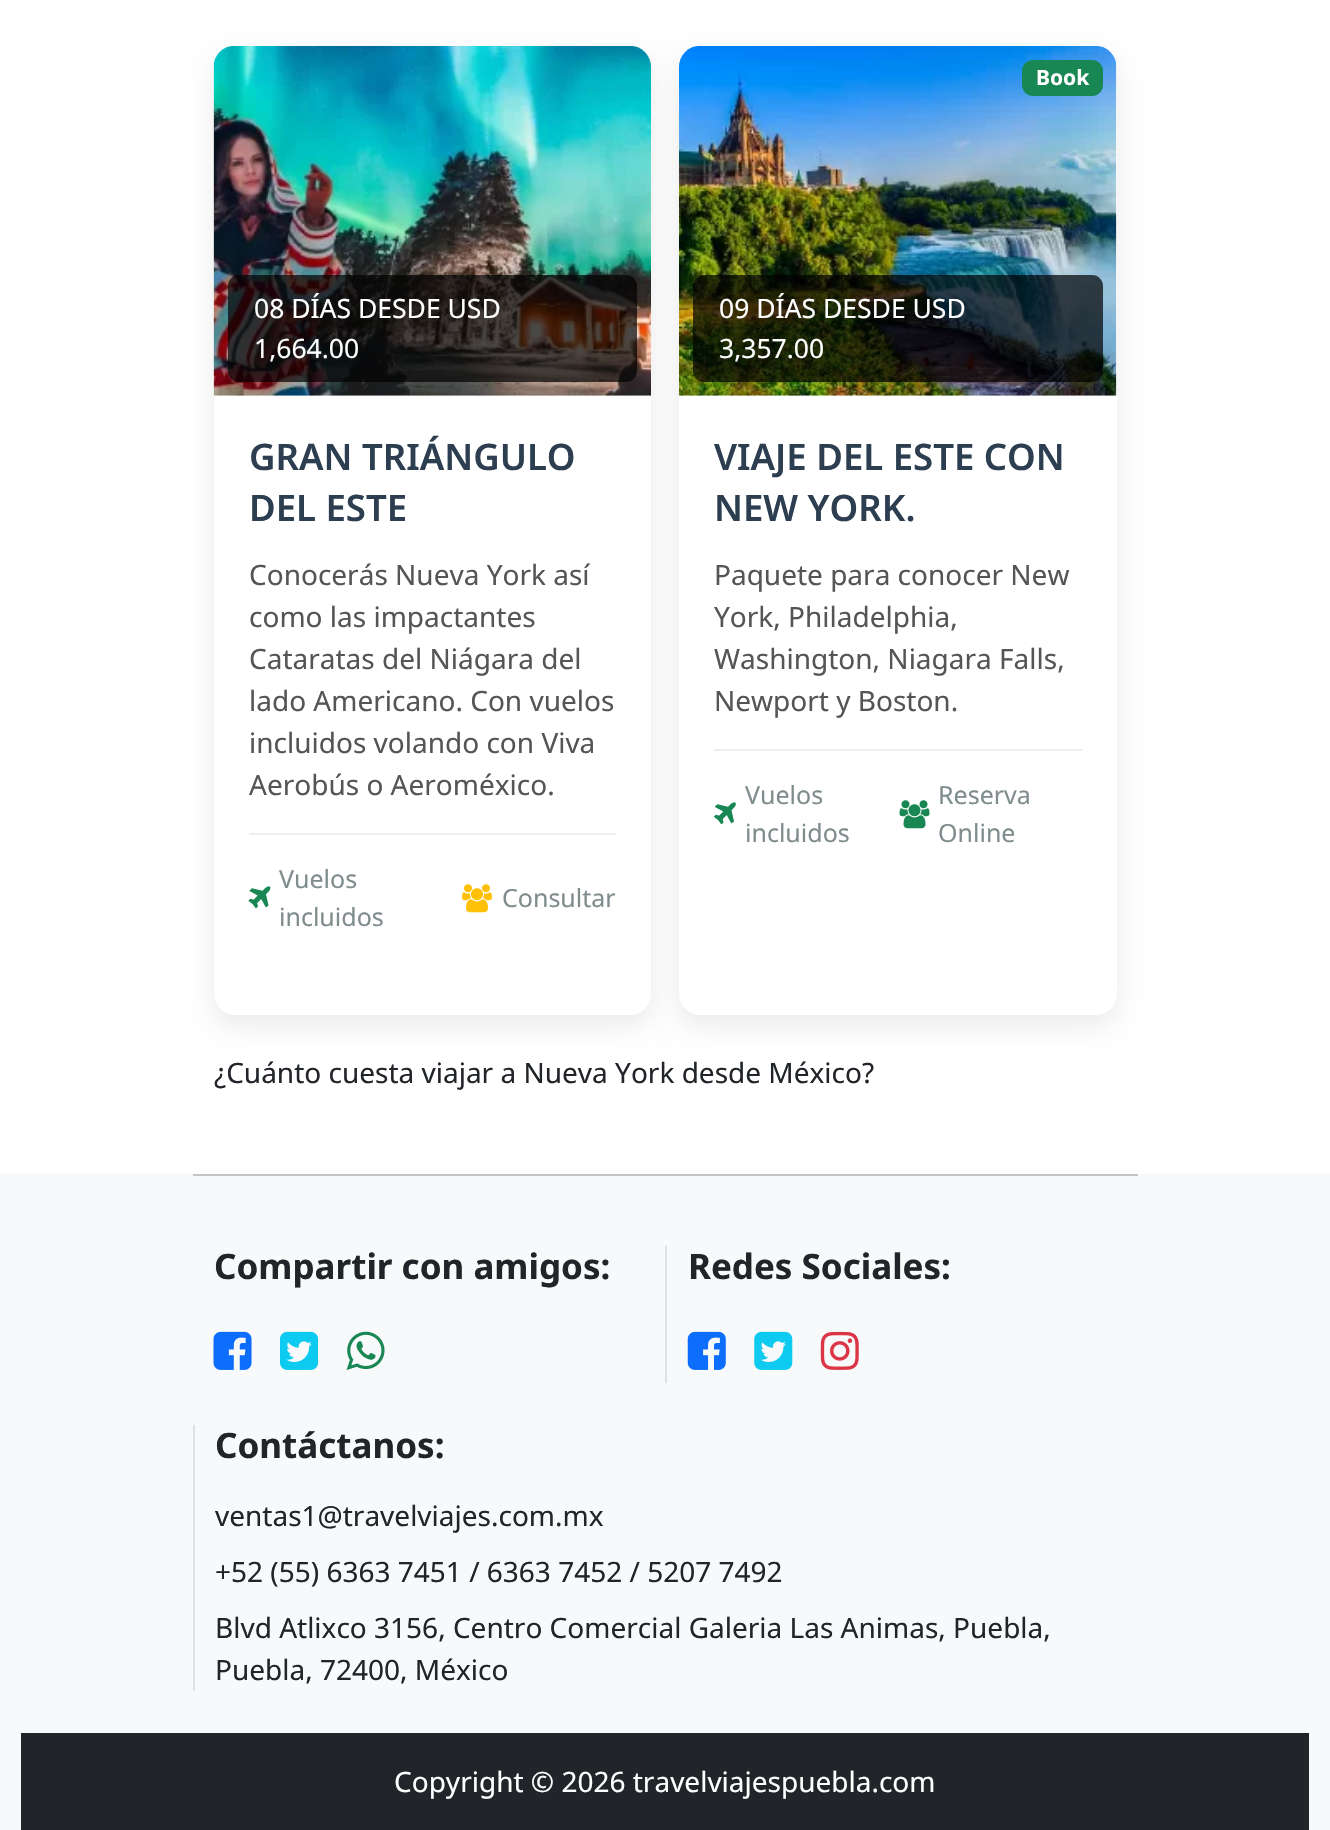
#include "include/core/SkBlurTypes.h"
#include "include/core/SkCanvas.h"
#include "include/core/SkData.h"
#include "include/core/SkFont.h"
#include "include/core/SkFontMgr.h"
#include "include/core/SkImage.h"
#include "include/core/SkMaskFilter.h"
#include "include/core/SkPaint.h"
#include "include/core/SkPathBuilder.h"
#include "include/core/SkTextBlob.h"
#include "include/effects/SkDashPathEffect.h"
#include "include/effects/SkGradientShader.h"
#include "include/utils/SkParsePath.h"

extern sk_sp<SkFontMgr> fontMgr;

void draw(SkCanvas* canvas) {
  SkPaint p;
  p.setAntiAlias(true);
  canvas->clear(SK_ColorWHITE);
  p.setColor(SkColorSetARGB(20, 0, 0, 0));
  p.setMaskFilter(SkMaskFilter::MakeBlur(kNormal_SkBlurStyle, 13));
  canvas->drawRoundRect(SkRect::MakeLTRB(214, 56, 651, 1026), 21, 21, p);
  p.setMaskFilter(nullptr);
  p.setColor(SK_ColorWHITE);
  canvas->drawRoundRect(SkRect::MakeLTRB(214, 46, 651, 1015), 21, 21, p);
  p.setColor(SkColorSetARGB(20, 0, 0, 0));
  p.setMaskFilter(SkMaskFilter::MakeBlur(kNormal_SkBlurStyle, 13));
  canvas->drawRoundRect(SkRect::MakeLTRB(679, 56, 1117, 1026), 21, 21, p);
  p.setMaskFilter(nullptr);
  canvas->drawImageRect(SkImages::DeferredFromEncodedData(SkData::MakeFromFileName("images/1.png")), SkRect::MakeLTRB(213, 46, 651, 396), SkSamplingOptions());
  p.setColor(SkColorSetARGB(179, 0, 0, 0));
  canvas->drawRoundRect(SkRect::MakeLTRB(228, 275, 637, 382), 11, 11, p);
  p.setColor(SkColorSetRGB(238, 238, 238));
  canvas->drawRect(SkRect::MakeLTRB(249, 833, 616, 835), p);
  canvas->drawImageRect(SkImages::DeferredFromEncodedData(SkData::MakeFromFileName("images/2.png")), SkRect::MakeLTRB(248, 886, 271, 909), SkSamplingOptions());
  canvas->drawImageRect(SkImages::DeferredFromEncodedData(SkData::MakeFromFileName("images/3.png")), SkRect::MakeLTRB(462, 884, 492, 913), SkSamplingOptions());
  p.setColor(SK_ColorWHITE);
  canvas->drawRoundRect(SkRect::MakeLTRB(679, 46, 1117, 1015), 21, 21, p);
  canvas->drawImageRect(SkImages::DeferredFromEncodedData(SkData::MakeFromFileName("images/4.png")), SkRect::MakeLTRB(679, 46, 1117, 396), SkSamplingOptions());
  p.setColor(SkColorSetRGB(25, 135, 84));
  canvas->drawRoundRect(SkRect::MakeLTRB(1022, 60, 1103, 96), 11, 11, p);
  p.setColor(SkColorSetARGB(179, 0, 0, 0));
  canvas->drawRoundRect(SkRect::MakeLTRB(693, 275, 1103, 382), 11, 11, p);
  p.setColor(SkColorSetRGB(238, 238, 238));
  canvas->drawRect(SkRect::MakeLTRB(714, 749, 1082, 751), p);
  canvas->drawImageRect(SkImages::DeferredFromEncodedData(SkData::MakeFromFileName("images/5.png")), SkRect::MakeLTRB(714, 802, 736, 825), SkSamplingOptions());
  canvas->drawImageRect(SkImages::DeferredFromEncodedData(SkData::MakeFromFileName("images/6.png")), SkRect::MakeLTRB(899, 800, 930, 829), SkSamplingOptions());
  p.setColor(SkColorSetRGB(248, 249, 250));
  canvas->drawRect(SkRect::MakeLTRB(0, 1174, 1330, 1830), p);
  p.setColor(SkColorSetRGB(194, 196, 198));
  canvas->drawRect(SkRect::MakeLTRB(193, 1174, 1138, 1176), p);
  canvas->drawImageRect(SkImages::DeferredFromEncodedData(SkData::MakeFromFileName("images/7.png")), SkRect::MakeLTRB(213, 1331, 252, 1370), SkSamplingOptions());
  canvas->drawImageRect(SkImages::DeferredFromEncodedData(SkData::MakeFromFileName("images/8.png")), SkRect::MakeLTRB(280, 1331, 319, 1370), SkSamplingOptions());
  canvas->drawImageRect(SkImages::DeferredFromEncodedData(SkData::MakeFromFileName("images/9.png")), SkRect::MakeLTRB(346, 1331, 385, 1370), SkSamplingOptions());
  p.setColor(SkColorSetRGB(222, 226, 230));
  canvas->drawRect(SkRect::MakeLTRB(665, 1246, 667, 1383), p);
  canvas->drawImageRect(SkImages::DeferredFromEncodedData(SkData::MakeFromFileName("images/10.png")), SkRect::MakeLTRB(687, 1331, 726, 1370), SkSamplingOptions());
  canvas->drawImageRect(SkImages::DeferredFromEncodedData(SkData::MakeFromFileName("images/11.png")), SkRect::MakeLTRB(754, 1331, 793, 1370), SkSamplingOptions());
  canvas->drawImageRect(SkImages::DeferredFromEncodedData(SkData::MakeFromFileName("images/12.png")), SkRect::MakeLTRB(820, 1331, 859, 1370), SkSamplingOptions());
  canvas->drawRect(SkRect::MakeLTRB(193, 1425, 195, 1691), p);
  p.setColor(SkColorSetRGB(33, 37, 41));
  canvas->drawRect(SkRect::MakeLTRB(21, 1733, 1309, 1830), p);
  SkFont font1(fontMgr->matchFamilyStyle("Noto Sans", SkFontStyle::Normal()), 26.5f);
  font1.setSubpixel(true);
  p.setColor(SK_ColorWHITE);
  canvas->drawString("08 DÍAS DESDE USD", 254, 318, font1, p);
  canvas->drawString("1,664.00", 254, 358, font1, p);
  SkFont font2(fontMgr->matchFamilyStyle("Noto Sans", SkFontStyle(600, SkFontStyle::kNormal_Width, SkFontStyle::kUpright_Slant)), 36.5f);
  font2.setSubpixel(true);
  p.setColor(SkColorSetRGB(44, 62, 80));
  canvas->drawString("GRAN TRIÁNGULO", 249, 470, font2, p);
  canvas->drawString("DEL ESTE", 249, 521, font2, p);
  SkFont font3(fontMgr->matchFamilyStyle("Noto Sans", SkFontStyle::Normal()), 28);
  font3.setSubpixel(true);
  p.setColor(SkColorSetRGB(85, 85, 85));
  canvas->drawString("Conocerás Nueva York así", 249, 585, font3, p);
  canvas->drawString("como las impactantes", 249, 627, font3, p);
  canvas->drawString("Cataratas del Niágara del", 249, 669, font3, p);
  canvas->drawString("lado Americano. Con vuelos", 249, 711, font3, p);
  canvas->drawString("incluidos volando con Viva", 249, 753, font3, p);
  canvas->drawString("Aerobús o Aeroméxico.", 249, 795, font3, p);
  SkFont font4(fontMgr->matchFamilyStyle("Noto Sans", SkFontStyle::Normal()), 25);
  font4.setSubpixel(true);
  p.setColor(SkColorSetRGB(127, 140, 141));
  canvas->drawString("Vuelos", 279, 888, font4, p);
  canvas->drawString("incluidos", 279, 926, font4, p);
  canvas->drawString("Consultar", 502, 907, font4, p);
  SkFont font5(fontMgr->matchFamilyStyle("Noto Sans", SkFontStyle::Bold()), 21);
  font5.setSubpixel(true);
  p.setColor(SK_ColorWHITE);
  canvas->drawString("Book", 1036, 85, font5, p);
  canvas->drawString("09 DÍAS DESDE USD", 719, 318, font1, p);
  canvas->drawString("3,357.00", 719, 358, font1, p);
  p.setColor(SkColorSetRGB(44, 62, 80));
  canvas->drawString("VIAJE DEL ESTE CON", 714, 470, font2, p);
  canvas->drawString("NEW YORK.", 714, 521, font2, p);
  p.setColor(SkColorSetRGB(85, 85, 85));
  canvas->drawString("Paquete para conocer New", 714, 585, font3, p);
  canvas->drawString("York, Philadelphia,", 714, 627, font3, p);
  canvas->drawString("Washington, Niagara Falls,", 714, 669, font3, p);
  canvas->drawString("Newport y Boston.", 714, 711, font3, p);
  p.setColor(SkColorSetRGB(127, 140, 141));
  canvas->drawString("Vuelos", 745, 804, font4, p);
  canvas->drawString("incluidos", 745, 842, font4, p);
  canvas->drawString("Reserva", 938, 804, font4, p);
  canvas->drawString("Online", 938, 842, font4, p);
  p.setColor(SkColorSetRGB(33, 37, 41));
  canvas->drawString("¿Cuánto cuesta viajar a Nueva York desde México?", 214, 1083, font3, p);
  SkFont font6(fontMgr->matchFamilyStyle("Noto Sans", SkFontStyle::Bold()), 35);
  font6.setSubpixel(true);
  canvas->drawString("Compartir con amigos:", 214, 1279, font6, p);
  canvas->drawString("Redes Sociales:", 688, 1279, font6, p);
  canvas->drawString("Contáctanos:", 215, 1458, font6, p);
  canvas->drawString("ventas1@travelviajes.com.mx", 215, 1526, font3, p);
  canvas->drawString("+52 (55) 6363 7451 / 6363 7452 / 5207 7492", 215, 1582, font3, p);
  canvas->drawString("Blvd Atlixco 3156, Centro Comercial Galeria Las Animas, Puebla,", 215, 1638, font3, p);
  canvas->drawString("Puebla, 72400, México", 215, 1680, font3, p);
  p.setColor(SK_ColorWHITE);
  canvas->drawString("Copyright © 2026 travelviajespuebla.com", 394, 1792, font3, p);
}
